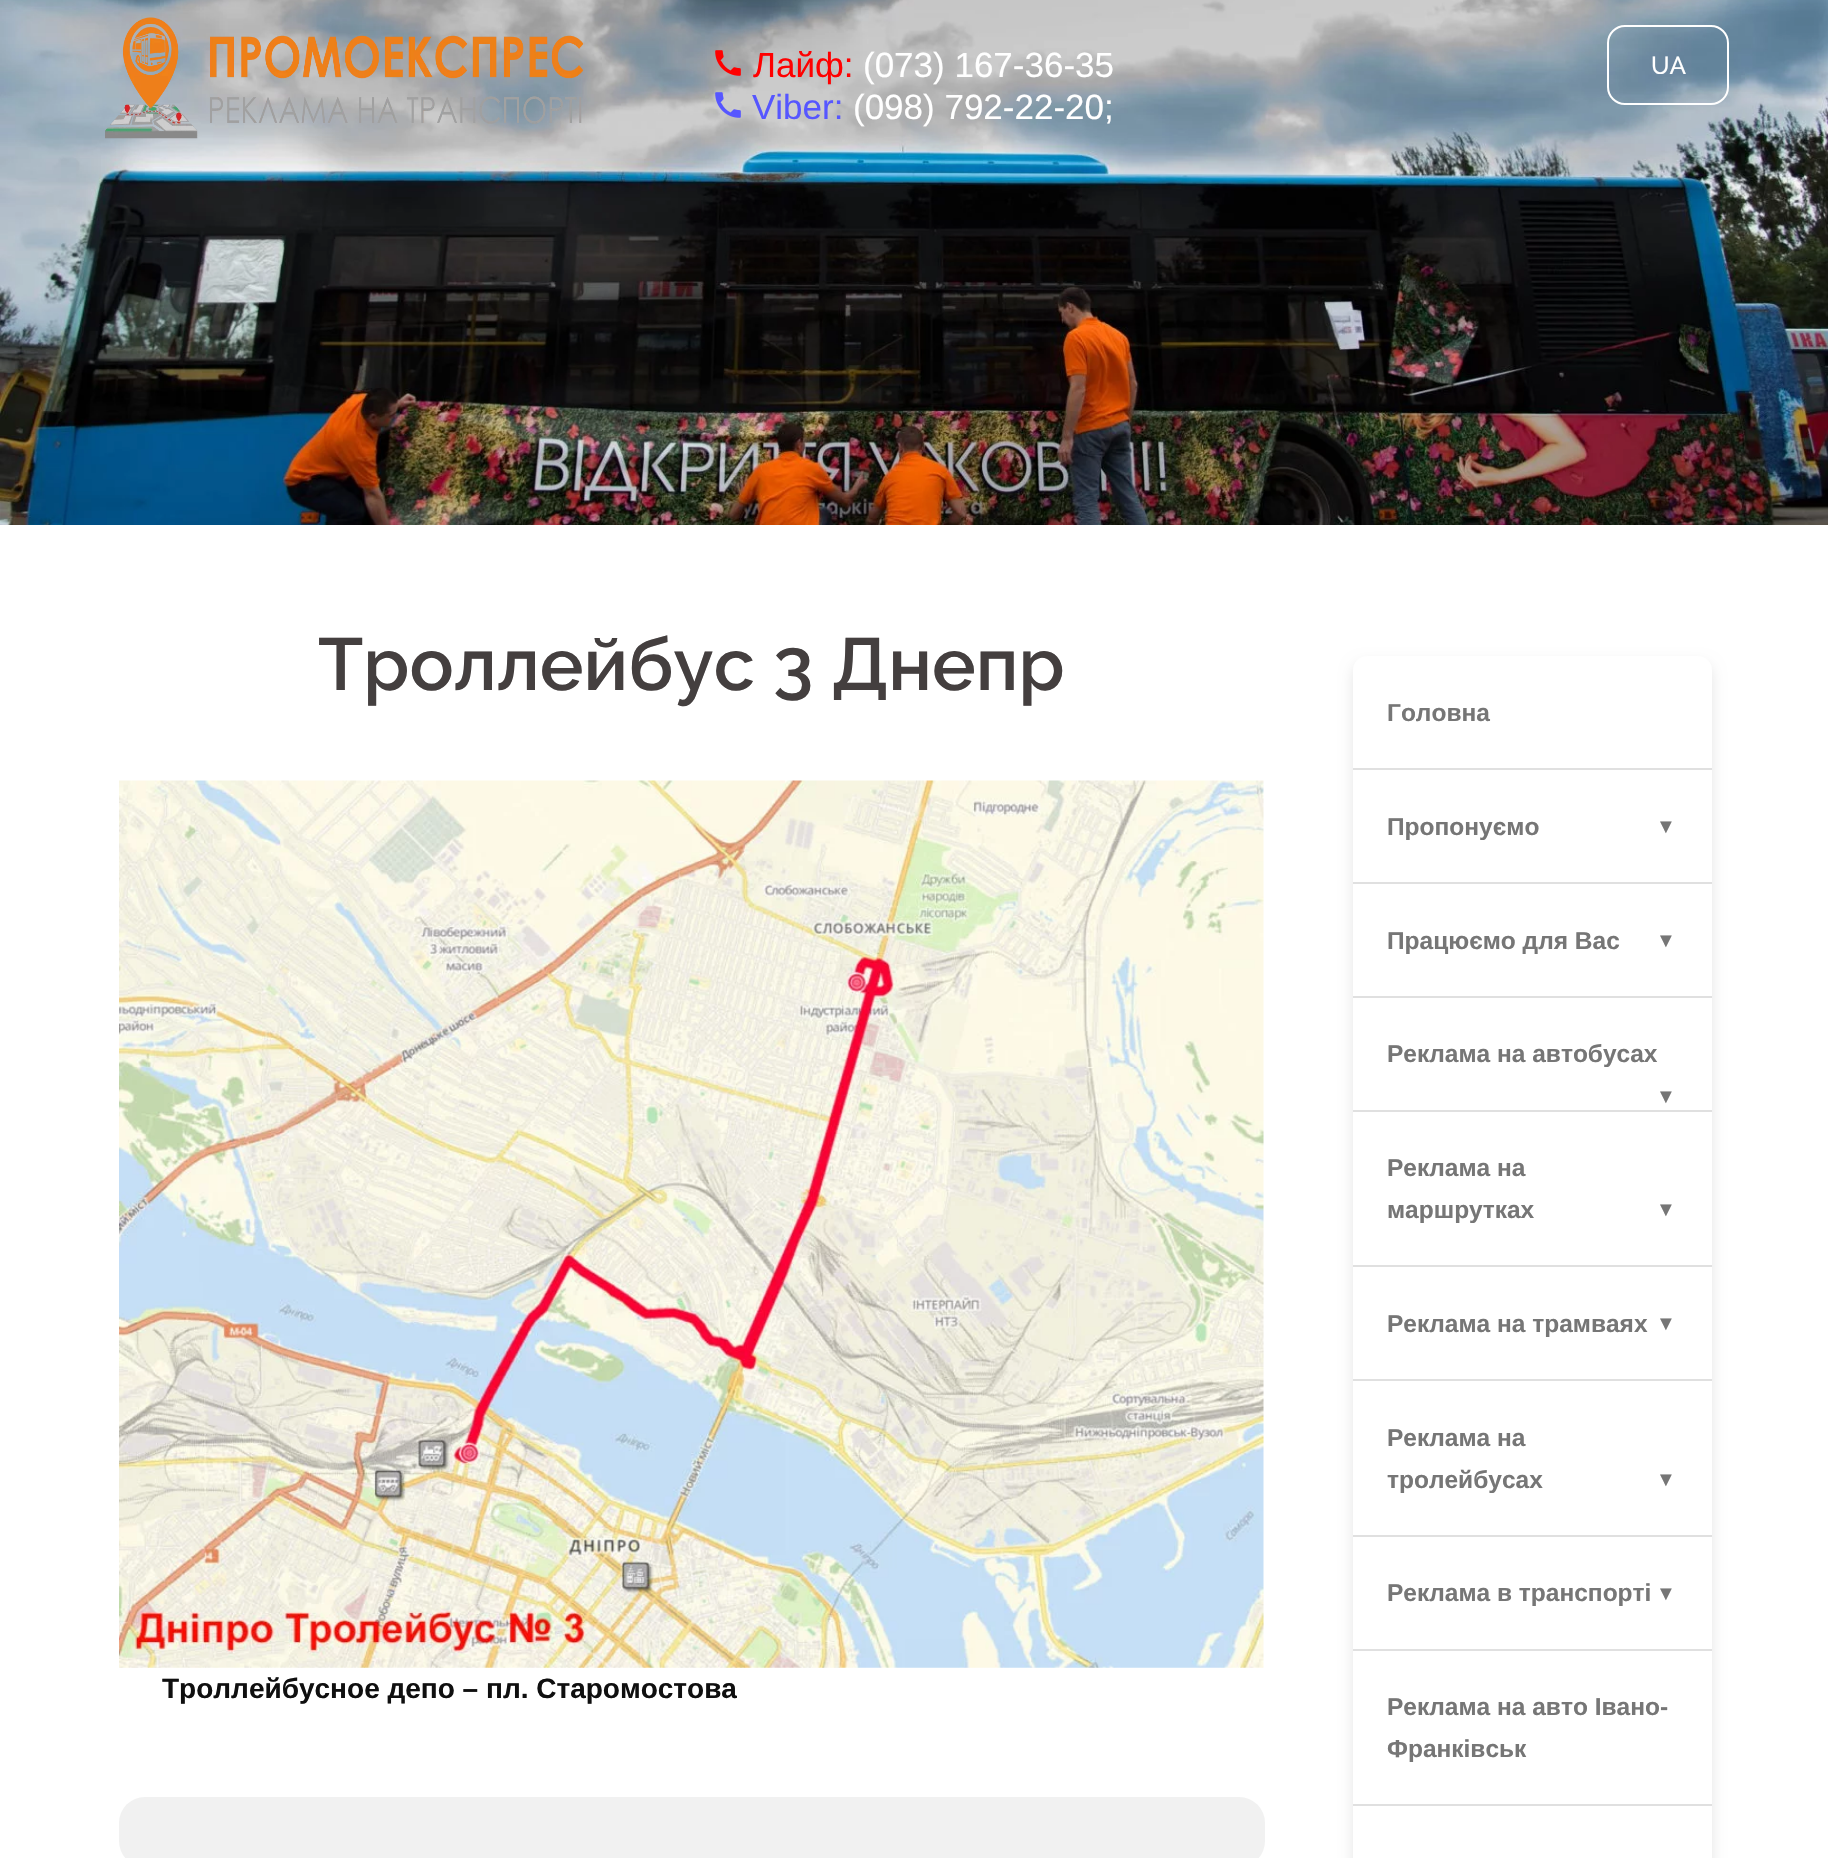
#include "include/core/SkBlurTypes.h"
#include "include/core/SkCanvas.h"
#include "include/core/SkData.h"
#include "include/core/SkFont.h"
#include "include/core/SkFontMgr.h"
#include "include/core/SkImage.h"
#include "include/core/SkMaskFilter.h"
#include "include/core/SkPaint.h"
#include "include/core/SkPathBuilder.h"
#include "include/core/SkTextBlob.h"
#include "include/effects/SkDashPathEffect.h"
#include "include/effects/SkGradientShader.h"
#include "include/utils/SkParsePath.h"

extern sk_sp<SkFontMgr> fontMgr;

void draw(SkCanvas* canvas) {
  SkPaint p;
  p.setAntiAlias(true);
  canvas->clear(SK_ColorWHITE);
  canvas->drawImageRect(SkImages::DeferredFromEncodedData(SkData::MakeFromFileName("images/1.png")), SkRect::MakeLTRB(0, 0, 1828, 525), SkSamplingOptions());
  canvas->drawImageRect(SkImages::DeferredFromEncodedData(SkData::MakeFromFileName("images/2.png")), SkRect::MakeLTRB(105, 17, 584, 139), SkSamplingOptions());
  canvas->drawImageRect(SkImages::DeferredFromEncodedData(SkData::MakeFromFileName("images/3.png")), SkRect::MakeLTRB(715, 50, 741, 76), SkSamplingOptions());
  canvas->drawImageRect(SkImages::DeferredFromEncodedData(SkData::MakeFromFileName("images/4.png")), SkRect::MakeLTRB(715, 92, 741, 118), SkSamplingOptions());
  p.setStyle(SkPaint::kStroke_Style);
  p.setStrokeWidth(2);
  p.setColor(SK_ColorWHITE);
  canvas->drawRoundRect(SkRect::MakeLTRB(1608, 26, 1728, 104), 17, 17, p);
  canvas->drawImageRect(SkImages::DeferredFromEncodedData(SkData::MakeFromFileName("images/5.png")), SkRect::MakeLTRB(119, 780, 1264, 1668), SkSamplingOptions());
  p.setStyle(SkPaint::kFill_Style);
  p.setColor(SkColorSetRGB(241, 241, 241));
  canvas->drawRoundRect(SkRect::MakeLTRB(119, 1797, 1265, 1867), 26, 26, p);
  p.setColor(SkColorSetARGB(26, 0, 0, 0));
  p.setMaskFilter(SkMaskFilter::MakeBlur(kNormal_SkBlurStyle, 7));
  canvas->drawRoundRect(SkRect::MakeLTRB(1353, 663, 1712, 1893), 14, 14, p);
  p.setMaskFilter(nullptr);
  p.setColor(SK_ColorWHITE);
  canvas->drawRoundRect(SkRect::MakeLTRB(1353, 656, 1712, 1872), 14, 14, p);
  p.setColor(SkColorSetRGB(224, 224, 224));
  canvas->drawRect(SkRect::MakeLTRB(1353, 768, 1712, 770), p);
  canvas->drawRect(SkRect::MakeLTRB(1353, 882, 1712, 884), p);
  canvas->drawRect(SkRect::MakeLTRB(1353, 996, 1712, 998), p);
  canvas->drawRect(SkRect::MakeLTRB(1353, 1110, 1712, 1112), p);
  canvas->drawRect(SkRect::MakeLTRB(1353, 1265, 1712, 1267), p);
  canvas->drawRect(SkRect::MakeLTRB(1353, 1379, 1712, 1381), p);
  canvas->drawRect(SkRect::MakeLTRB(1353, 1535, 1712, 1537), p);
  canvas->drawRect(SkRect::MakeLTRB(1353, 1649, 1712, 1651), p);
  canvas->drawRect(SkRect::MakeLTRB(1353, 1804, 1712, 1806), p);
  SkFont font1(fontMgr->matchFamilyStyle("Liberation Sans", SkFontStyle::Normal()), 35);
  font1.setSubpixel(true);
  p.setColor(SkColorSetRGB(255, 0, 0));
  canvas->drawString("Лайф:", 753, 77, font1, p);
  p.setColor(SK_ColorWHITE);
  canvas->drawString("(073) 167-36-35", 863, 77, font1, p);
  p.setColor(SkColorSetRGB(86, 86, 255));
  canvas->drawString("Viber:", 752, 119, font1, p);
  p.setColor(SK_ColorWHITE);
  canvas->drawString("(098) 792-22-20;", 853, 119, font1, p);
  SkFont font2(fontMgr->matchFamilyStyle("Raleway", SkFontStyle(500, SkFontStyle::kNormal_Width, SkFontStyle::kUpright_Slant)), 24.5f);
  font2.setSubpixel(true);
  canvas->drawString("UA", 1651, 74, font2, p);
  SkFont font3(fontMgr->matchFamilyStyle("Raleway", SkFontStyle(600, SkFontStyle::kNormal_Width, SkFontStyle::kUpright_Slant)), 73.5f);
  font3.setSubpixel(true);
  p.setColor(SkColorSetRGB(68, 63, 63));
  canvas->drawString("Троллейбус 3 Днепр", 318, 690, font3, p);
  SkFont font4(fontMgr->matchFamilyStyle("Liberation Sans", SkFontStyle::Bold()), 28);
  font4.setSubpixel(true);
  p.setColor(SkColorSetRGB(15, 15, 15));
  canvas->drawString("Троллейбусное депо – пл. Старомостова", 162, 1698, font4, p);
  SkFont font5(fontMgr->matchFamilyStyle("Liberation Sans", SkFontStyle::Bold()), 24.5f);
  font5.setSubpixel(true);
  p.setColor(SkColorSetRGB(118, 118, 118));
  canvas->drawString("Головна", 1387, 721, font5, p);
  canvas->drawString("Пропонуємо", 1387, 835, font5, p);
  SkFont font6(fontMgr->matchFamilyStyle("Liberation Sans", SkFontStyle::Bold()), 20);
  font6.setSubpixel(true);
  canvas->drawString("▼", 1656, 833, font6, p);
  canvas->drawString("Працюємо для Вас", 1387, 949, font5, p);
  canvas->drawString("▼", 1656, 947, font6, p);
  canvas->drawString("Реклама на автобусах", 1387, 1062, font5, p);
  canvas->drawString("▼", 1656, 1103, font6, p);
  canvas->drawString("Реклама на", 1387, 1176, font5, p);
  canvas->drawString("маршрутках", 1387, 1218, font5, p);
  canvas->drawString("▼", 1656, 1216, font6, p);
  canvas->drawString("Реклама на трамваях", 1387, 1332, font5, p);
  canvas->drawString("▼", 1656, 1330, font6, p);
  canvas->drawString("Реклама на", 1387, 1446, font5, p);
  canvas->drawString("тролейбусах", 1387, 1488, font5, p);
  canvas->drawString("▼", 1656, 1486, font6, p);
  canvas->drawString("Реклама в транспорті", 1387, 1601, font5, p);
  canvas->drawString("▼", 1656, 1600, font6, p);
  canvas->drawString("Реклама на авто Івано-", 1387, 1715, font5, p);
  canvas->drawString("Франківськ", 1387, 1757, font5, p);
}
